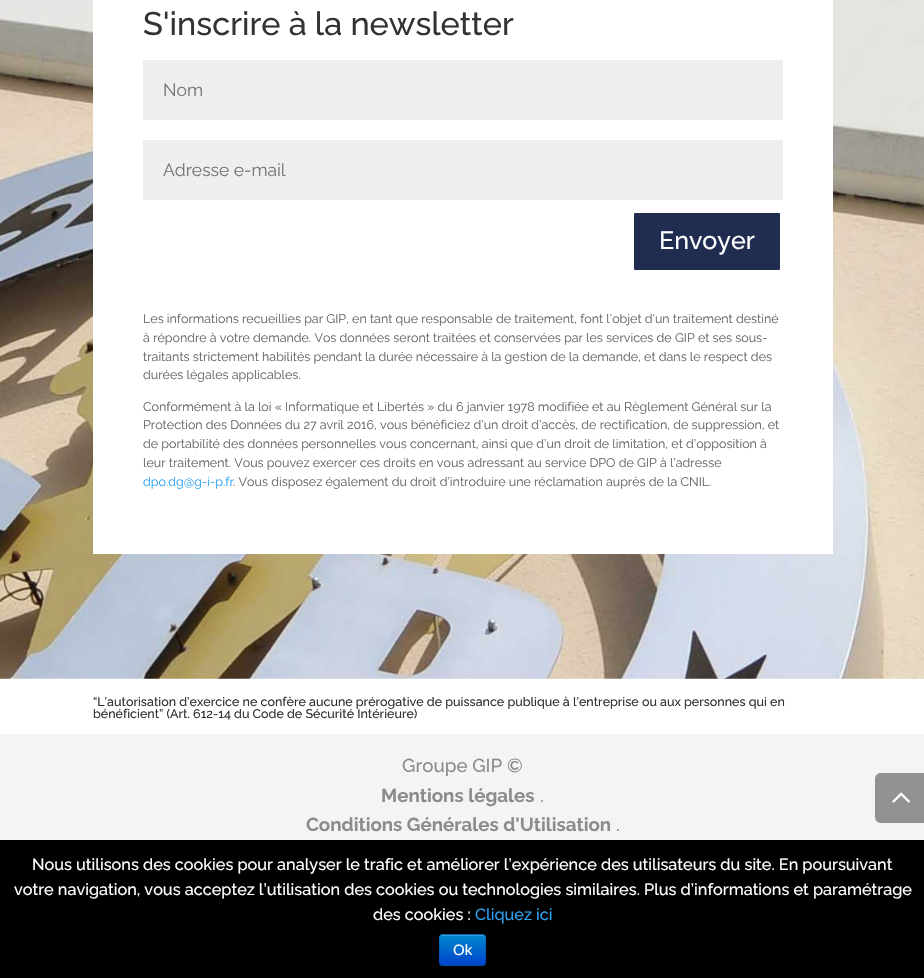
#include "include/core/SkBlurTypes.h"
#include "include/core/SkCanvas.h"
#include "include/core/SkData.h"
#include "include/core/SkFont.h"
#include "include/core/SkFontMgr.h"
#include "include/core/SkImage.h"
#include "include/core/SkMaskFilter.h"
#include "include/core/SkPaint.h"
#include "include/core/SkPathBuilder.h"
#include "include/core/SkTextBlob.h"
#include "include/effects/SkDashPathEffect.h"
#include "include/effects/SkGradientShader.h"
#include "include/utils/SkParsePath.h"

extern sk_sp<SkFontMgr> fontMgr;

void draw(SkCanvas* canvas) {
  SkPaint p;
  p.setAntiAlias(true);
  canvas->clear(SK_ColorWHITE);
  canvas->drawImageRect(SkImages::DeferredFromEncodedData(SkData::MakeFromFileName("images/1.png")), SkRect::MakeLTRB(0, 0, 924, 679), SkSamplingOptions());
  p.setColor(SK_ColorWHITE);
  canvas->drawRect(SkRect::MakeLTRB(93, 0, 833, 554), p);
  p.setColor(SkColorSetRGB(238, 238, 238));
  canvas->drawRect(SkRect::MakeLTRB(143, 60, 783, 120), p);
  canvas->drawRect(SkRect::MakeLTRB(143, 140, 783, 200), p);
  p.setColor(SkColorSetRGB(32, 44, 80));
  canvas->drawRoundRect(SkRect::MakeLTRB(632.5f, 211.5f, 781.5f, 271.5f), 2.5f, 2.5f, p);
  p.setStyle(SkPaint::kStroke_Style);
  p.setStrokeWidth(3);
  p.setColor(SK_ColorWHITE);
  canvas->drawRoundRect(SkRect::MakeLTRB(632.5f, 211.5f, 781.5f, 271.5f), 2.5f, 2.5f, p);
  p.setStyle(SkPaint::kFill_Style);
  p.setColor(SkColorSetRGB(244, 244, 244));
  canvas->drawRect(SkRect::MakeLTRB(0, 734, 924, 840), p);
  p.setColor(SkColorSetRGB(146, 146, 146));
  canvas->drawPath(SkPathBuilder().moveTo(881, 773).lineTo(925, 773).lineTo(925, 823).lineTo(881, 823).cubicTo(877.5f, 823, 875, 820.5f, 875, 817).lineTo(875, 779).cubicTo(875, 775.5f, 877.5f, 773, 881, 773).close().detach(), p);
  canvas->drawImageRect(SkImages::DeferredFromEncodedData(SkData::MakeFromFileName("images/2.png")), SkRect::MakeLTRB(892, 792, 910, 803), SkSamplingOptions());
  p.setColor(SK_ColorBLACK);
  canvas->drawRect(SkRect::MakeLTRB(0, 840, 924, 978), p);
  p.setColor(SkColorSetRGB(0, 109, 204));
  canvas->drawRoundRect(SkRect::MakeLTRB(439, 934, 486, 966), 4, 4, p);
  canvas->save();
  canvas->clipPath(SkPathBuilder().moveTo(443, 934).lineTo(482, 934).cubicTo(484, 934, 486, 936, 486, 938).lineTo(486, 962).cubicTo(486, 964, 484, 966, 482, 966).lineTo(443, 966).cubicTo(441, 966, 439, 964, 439, 962).lineTo(439, 938).cubicTo(439, 936, 441, 934, 443, 934).close().detach(), true);
  {
    const SkColor colors[] = {SkColorSetRGB(0, 136, 204), SkColorSetRGB(0, 68, 204)};
    const float stops[] = {0, 1};
    const SkPoint ends[] = {{463, 935}, {463, 965}};
    p.setShader(SkGradientShader::MakeLinear(ends, colors, stops, 2, SkTileMode::kClamp));
    p.setAlpha(255);
  }
  canvas->drawRect(SkRect::MakeLTRB(439, 935, 486, 965), p);
  canvas->restore();
  p.setShader(nullptr);
  p.setColor(SkColorSetRGB(51, 159, 214));
  canvas->drawPath(SkPathBuilder().moveTo(442, 936).lineTo(482, 936).cubicTo(484, 936, 485, 937, 485, 939).cubicTo(485, 933, 481, 935, 476, 935).lineTo(449, 935).cubicTo(444, 935, 440, 933, 440, 939).cubicTo(440, 937, 441, 936, 442, 936).close().detach(), p);
  p.setStyle(SkPaint::kStroke_Style);
  p.setStrokeWidth(1.2f);
  p.setColor(SkColorSetARGB(64, 0, 0, 0));
  canvas->drawPath(SkPathBuilder().moveTo(484.5f, 964.5f).lineTo(482.5f, 965.5f).lineTo(442.5f, 965.5f).lineTo(440.5f, 964.5f).detach(), p);
  p.setColor(SkColorSetARGB(26, 0, 0, 0));
  canvas->drawPath(SkPathBuilder().moveTo(440.5f, 964.5f).cubicTo(438, 962.5f, 439.5f, 953, 439.5f, 950).cubicTo(439.5f, 935.5f, 436, 934.5f, 449, 934.5f).lineTo(476, 934.5f).cubicTo(489, 934.5f, 485.5f, 935.5f, 485.5f, 950).cubicTo(485.5f, 953, 487, 962.5f, 484.5f, 964.5f).detach(), p);
  SkFont font1(fontMgr->matchFamilyStyle("Raleway", SkFontStyle(500, SkFontStyle::kNormal_Width, SkFontStyle::kUpright_Slant)), 32.5f);
  font1.setSubpixel(true);
  p.setStyle(SkPaint::kFill_Style);
  p.setColor(SkColorSetRGB(51, 51, 51));
  canvas->drawString("S'inscrire à la newsletter", 143, 35, font1, p);
  SkFont font2(fontMgr->matchFamilyStyle("Raleway", SkFontStyle::Normal()), 17.5f);
  font2.setSubpixel(true);
  p.setColor(SkColorSetRGB(117, 117, 117));
  canvas->drawString("Nom", 163, 96, font2, p);
  canvas->drawString("Adresse e-mail", 163, 176, font2, p);
  SkFont font3(fontMgr->matchFamilyStyle("Raleway", SkFontStyle(500, SkFontStyle::kNormal_Width, SkFontStyle::kUpright_Slant)), 25);
  font3.setSubpixel(true);
  p.setColor(SK_ColorWHITE);
  canvas->drawString("Envoyer", 659, 249, font3, p);
  SkFont font4(fontMgr->matchFamilyStyle("Raleway", SkFontStyle::Normal()), 12.5f);
  font4.setSubpixel(true);
  p.setColor(SkColorSetRGB(102, 102, 102));
  canvas->drawString("Les informations recueillies par GIP, en tant que responsable de traitement, font l’objet d’un traitement destiné", 143, 323, font4, p);
  canvas->drawString("à répondre à votre demande. Vos données seront traitées et conservées par les services de GIP et ses sous-", 143, 342, font4, p);
  canvas->drawString("traitants strictement habilités pendant la durée nécessaire à la gestion de la demande, et dans le respect des", 143, 361, font4, p);
  canvas->drawString("durées légales applicables.", 143, 379, font4, p);
  canvas->drawString("Conformément à la loi « Informatique et Libertés » du 6 janvier 1978 modifiée et au Règlement Général sur la", 143, 411, font4, p);
  canvas->drawString("Protection des Données du 27 avril 2016, vous bénéficiez d’un droit d’accès, de rectification, de suppression, et", 143, 429, font4, p);
  canvas->drawString("de portabilité des données personnelles vous concernant, ainsi que d’un droit de limitation, et d’opposition à", 143, 448, font4, p);
  canvas->drawString("leur traitement. Vous pouvez exercer ces droits en vous adressant au service DPO de GIP à l’adresse", 143, 467, font4, p);
  p.setColor(SkColorSetRGB(46, 163, 242));
  canvas->drawString("dpo.dg@g-i-p.fr", 143, 486, font4, p);
  p.setColor(SkColorSetRGB(102, 102, 102));
  canvas->drawString(". Vous disposez également du droit d’introduire une réclamation auprès de la CNIL.", 233, 486, font4, p);
  SkFont font5(fontMgr->matchFamilyStyle("Raleway", SkFontStyle(500, SkFontStyle::kNormal_Width, SkFontStyle::kUpright_Slant)), 12.5f);
  font5.setSubpixel(true);
  p.setColor(SkColorSetRGB(51, 51, 51));
  canvas->drawString("“L’autorisation d’exercice ne confère aucune prérogative de puissance publique à l’entreprise ou aux personnes qui en", 93, 706, font5, p);
  canvas->drawString("bénéficient” (Art. 612-14 du Code de Sécurité Intérieure)", 93, 718, font5, p);
  SkFont font6(fontMgr->matchFamilyStyle("Raleway", SkFontStyle(500, SkFontStyle::kNormal_Width, SkFontStyle::kUpright_Slant)), 18.75f);
  font6.setSubpixel(true);
  p.setColor(SkColorSetRGB(140, 140, 140));
  canvas->drawString("Groupe GIP ©", 402, 772, font6, p);
  SkFont font7(fontMgr->matchFamilyStyle("Raleway", SkFontStyle::Bold()), 18.75f);
  font7.setSubpixel(true);
  canvas->drawString("Mentions légales", 381, 802, font7, p);
  canvas->drawString(".", 540, 802, font6, p);
  canvas->drawString("Conditions Générales d'Utilisation", 306, 831, font7, p);
  canvas->drawString(".", 616, 831, font6, p);
  SkFont font8(fontMgr->matchFamilyStyle("Raleway", SkFontStyle(500, SkFontStyle::kNormal_Width, SkFontStyle::kUpright_Slant)), 16.25f);
  font8.setSubpixel(true);
  p.setColor(SK_ColorWHITE);
  canvas->drawString("Nous utilisons des cookies pour analyser le trafic et améliorer l’expérience des utilisateurs du site. En poursuivant", 32, 870, font8, p);
  canvas->drawString("votre navigation, vous acceptez l’utilisation des cookies ou technologies similaires. Plus d’informations et paramétrage", 14, 895, font8, p);
  canvas->drawString("des cookies :", 373, 920, font8, p);
  p.setColor(SkColorSetRGB(46, 163, 242));
  canvas->drawString("Cliquez ici", 475, 920, font8, p);
  SkFont font9(fontMgr->matchFamilyStyle("Liberation Sans", SkFontStyle::Normal()), 15);
  font9.setSubpixel(true);
  p.setColor(SK_ColorWHITE);
  canvas->drawString("Ok", 453, 955, font9, p);
}
